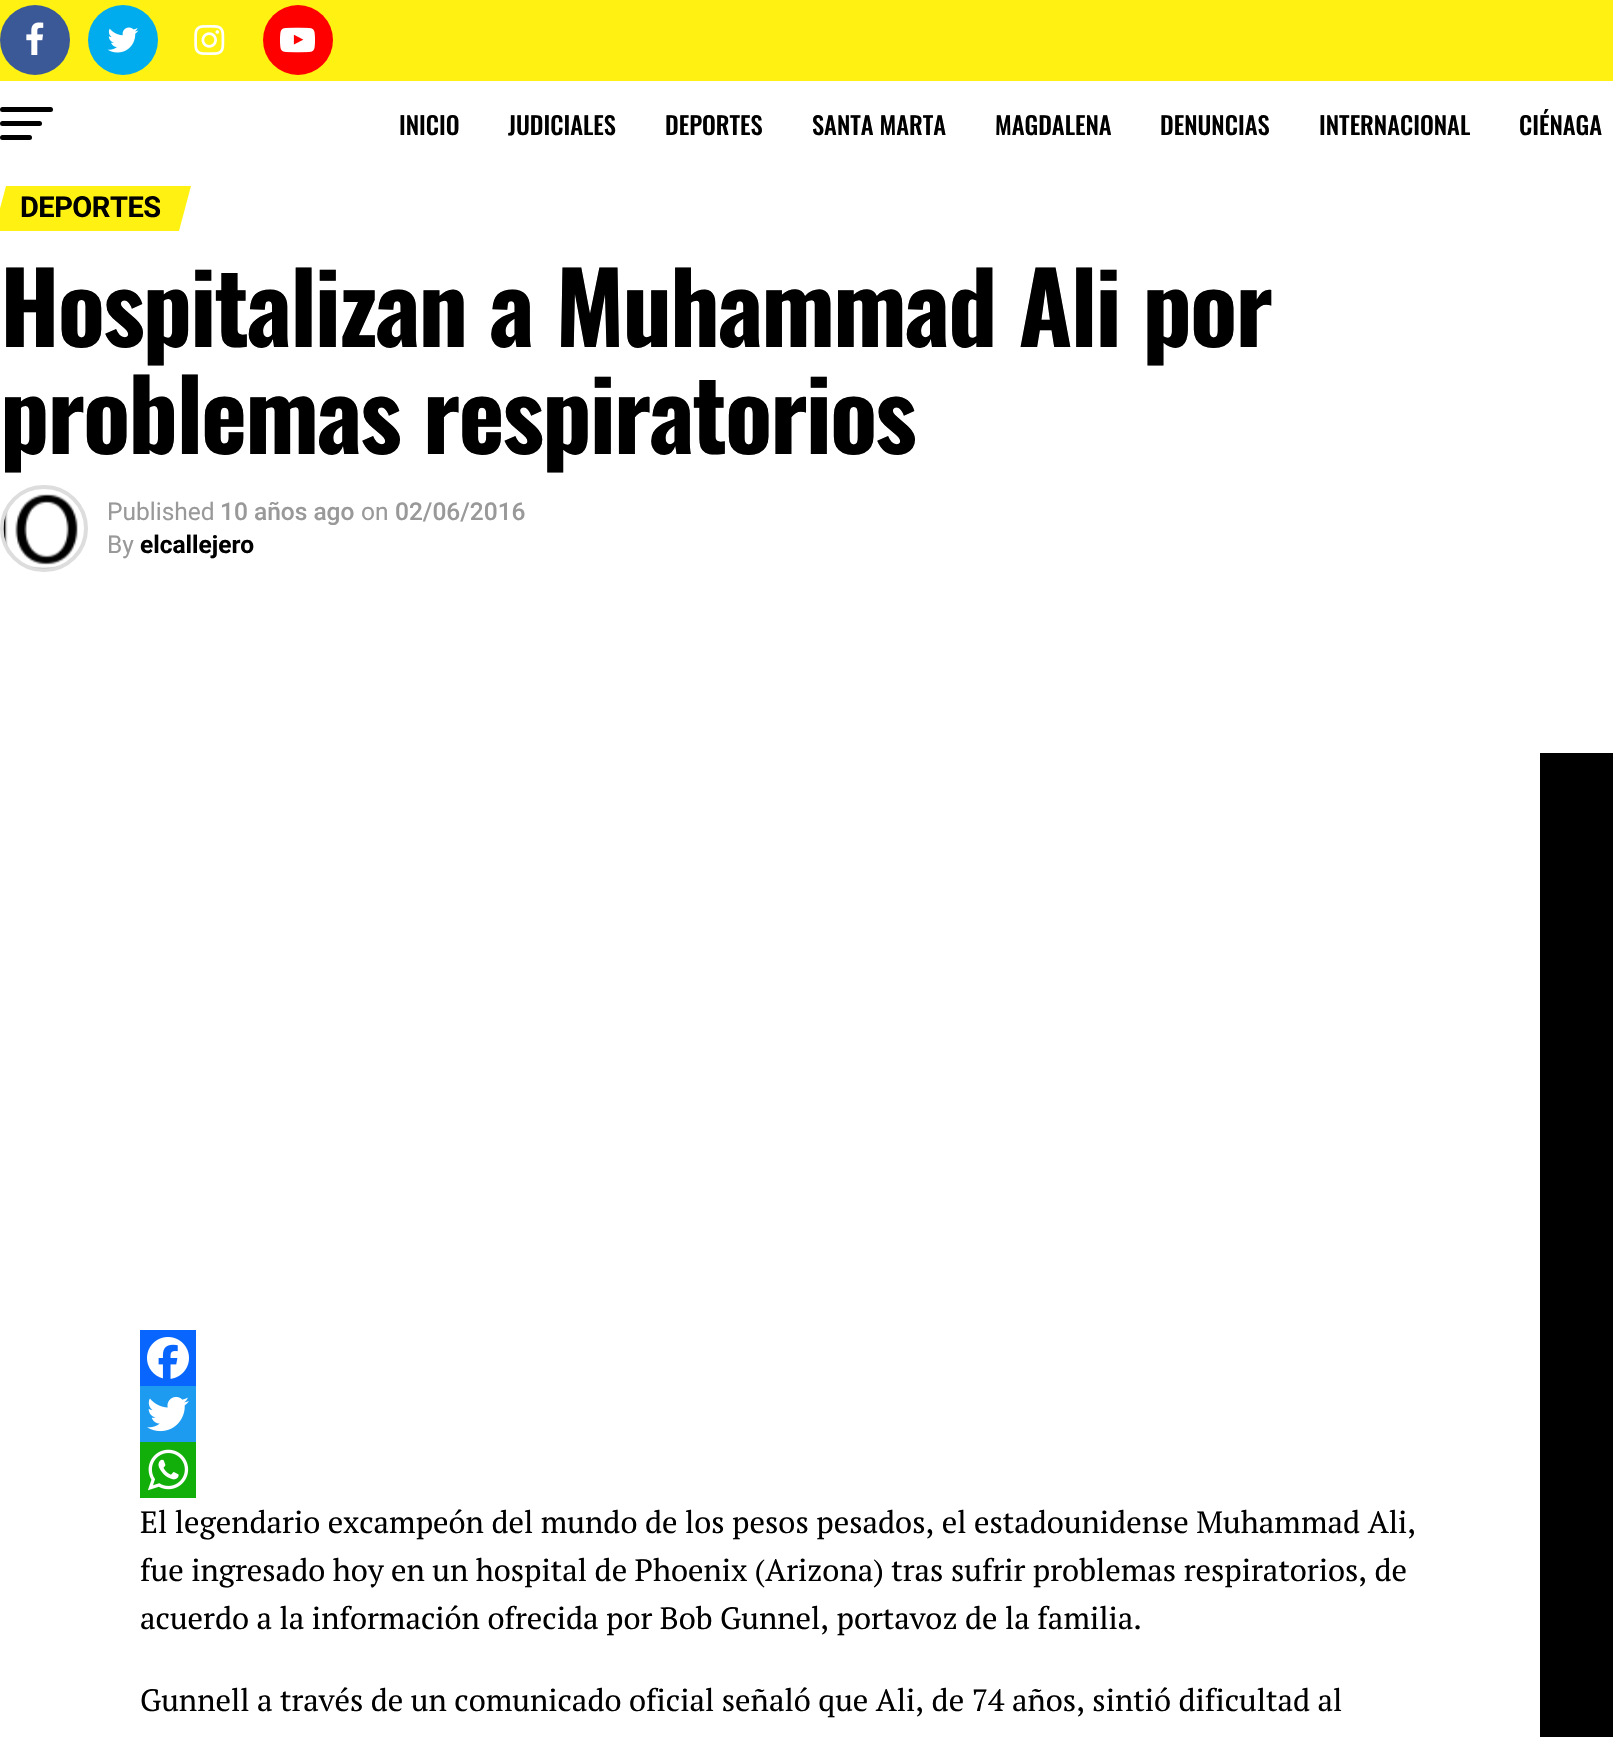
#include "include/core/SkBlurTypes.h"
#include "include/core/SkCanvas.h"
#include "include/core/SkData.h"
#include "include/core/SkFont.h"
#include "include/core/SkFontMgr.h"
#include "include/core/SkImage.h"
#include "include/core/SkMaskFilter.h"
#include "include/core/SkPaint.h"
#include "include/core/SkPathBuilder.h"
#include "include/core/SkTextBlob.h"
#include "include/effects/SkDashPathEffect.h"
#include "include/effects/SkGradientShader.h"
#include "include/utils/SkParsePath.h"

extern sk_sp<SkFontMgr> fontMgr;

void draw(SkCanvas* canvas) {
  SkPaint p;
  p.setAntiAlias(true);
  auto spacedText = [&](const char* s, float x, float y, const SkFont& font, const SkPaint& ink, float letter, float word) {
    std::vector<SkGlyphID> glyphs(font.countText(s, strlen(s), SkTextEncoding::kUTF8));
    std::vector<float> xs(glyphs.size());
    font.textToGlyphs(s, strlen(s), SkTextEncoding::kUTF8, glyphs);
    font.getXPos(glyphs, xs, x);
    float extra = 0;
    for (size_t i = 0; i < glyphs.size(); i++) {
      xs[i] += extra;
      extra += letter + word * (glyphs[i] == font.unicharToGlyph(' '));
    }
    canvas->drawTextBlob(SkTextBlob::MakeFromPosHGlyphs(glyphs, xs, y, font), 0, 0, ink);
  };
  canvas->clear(SK_ColorWHITE);
  p.setColor(SkColorSetRGB(255, 242, 19));
  canvas->drawRect(SkRect::MakeLTRB(0, 0, 1613, 81), p);
  p.setColor(SkColorSetRGB(59, 89, 151));
  canvas->drawCircle(35, 40, 35, p);
  canvas->drawImageRect(SkImages::DeferredFromEncodedData(SkData::MakeFromFileName("images/1.png")), SkRect::MakeLTRB(26, 22, 44, 55), SkSamplingOptions());
  p.setColor(SkColorSetRGB(0, 172, 237));
  canvas->drawCircle(123, 40, 35, p);
  canvas->drawImageRect(SkImages::DeferredFromEncodedData(SkData::MakeFromFileName("images/2.png")), SkRect::MakeLTRB(107, 27, 139, 53), SkSamplingOptions());
  canvas->drawImageRect(SkImages::DeferredFromEncodedData(SkData::MakeFromFileName("images/3.png")), SkRect::MakeLTRB(194, 25, 225, 55), SkSamplingOptions());
  p.setColor(SkColorSetRGB(255, 0, 0));
  canvas->drawCircle(298, 40, 35, p);
  canvas->drawImageRect(SkImages::DeferredFromEncodedData(SkData::MakeFromFileName("images/4.png")), SkRect::MakeLTRB(280, 27, 315, 53), SkSamplingOptions());
  p.setColor(SK_ColorBLACK);
  canvas->drawRoundRect(SkRect::MakeLTRB(0, 107, 53, 112), 2.5f, 2.5f, p);
  canvas->drawRoundRect(SkRect::MakeLTRB(0, 121, 42, 126), 2.5f, 2.5f, p);
  canvas->drawRoundRect(SkRect::MakeLTRB(0, 135, 32, 140), 2.5f, 2.5f, p);
  p.setColor(SkColorSetRGB(255, 242, 19));
  canvas->drawPath(SkPathBuilder().moveTo(6, 186).lineTo(191, 186).lineTo(179, 231).lineTo(-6, 231).close().detach(), p);
  p.setStyle(SkPaint::kStroke_Style);
  p.setStrokeWidth(4);
  p.setColor(SkColorSetRGB(221, 221, 221));
  canvas->drawRoundRect(SkRect::MakeLTRB(2, 487, 86, 570), 41.5f, 41.5f, p);
  canvas->drawImageRect(SkImages::DeferredFromEncodedData(SkData::MakeFromFileName("images/5.png")), SkRect::MakeLTRB(3, 494, 78, 569), SkSamplingOptions());
  p.setStyle(SkPaint::kFill_Style);
  p.setColor(SkColorSetRGB(8, 102, 255));
  canvas->drawRect(SkRect::MakeLTRB(140, 1330, 196, 1386), p);
  canvas->drawImageRect(SkImages::DeferredFromEncodedData(SkData::MakeFromFileName("images/6.png")), SkRect::MakeLTRB(147, 1337, 189, 1379), SkSamplingOptions());
  p.setColor(SkColorSetRGB(29, 155, 240));
  canvas->drawRect(SkRect::MakeLTRB(140, 1386, 196, 1442), p);
  canvas->drawImageRect(SkImages::DeferredFromEncodedData(SkData::MakeFromFileName("images/7.png")), SkRect::MakeLTRB(147, 1396, 189, 1432), SkSamplingOptions());
  p.setColor(SkColorSetRGB(18, 175, 10));
  canvas->drawRect(SkRect::MakeLTRB(140, 1442, 196, 1498), p);
  canvas->drawImageRect(SkImages::DeferredFromEncodedData(SkData::MakeFromFileName("images/8.png")), SkRect::MakeLTRB(148, 1449, 189, 1491), SkSamplingOptions());
  p.setColor(SK_ColorBLACK);
  canvas->drawRect(SkRect::MakeLTRB(1540, 753, 1613, 1737), p);
  SkFont font1(fontMgr->matchFamilyStyle("Oswald", SkFontStyle(500, SkFontStyle::kNormal_Width, SkFontStyle::kUpright_Slant)), 24.5f);
  font1.setSubpixel(true);
  canvas->drawString("INICIO", 399, 135, font1, p);
  canvas->drawString("JUDICIALES", 508, 135, font1, p);
  canvas->drawString("DEPORTES", 665, 135, font1, p);
  canvas->drawString("SANTA MARTA", 812, 135, font1, p);
  canvas->drawString("MAGDALENA", 995, 135, font1, p);
  canvas->drawString("DENUNCIAS", 1160, 135, font1, p);
  canvas->drawString("INTERNACIONAL", 1319, 135, font1, p);
  canvas->drawString("CIÉNAGA", 1519, 135, font1, p);
  SkFont font2(fontMgr->matchFamilyStyle("Roboto", SkFontStyle::Bold()), 29);
  font2.setSubpixel(true);
  spacedText("DEPORTES", 20, 217, font2, p, -0.5f, 0);
  SkFont font3(fontMgr->matchFamilyStyle("Oswald", SkFontStyle::Bold()), 98);
  font3.setSubpixel(true);
  spacedText("Hospitalizan a Muhammad Ali por", 0, 347, font3, p, -1.95f, 0);
  spacedText("problemas respiratorios", 0, 454, font3, p, -1.95f, 0);
  SkFont font4(fontMgr->matchFamilyStyle("Roboto", SkFontStyle::Normal()), 24.5f);
  font4.setSubpixel(true);
  p.setColor(SkColorSetRGB(153, 153, 153));
  canvas->drawString("Published", 107, 520, font4, p);
  SkFont font5(fontMgr->matchFamilyStyle("Roboto", SkFontStyle(500, SkFontStyle::kNormal_Width, SkFontStyle::kUpright_Slant)), 24.5f);
  font5.setSubpixel(true);
  canvas->drawString("10 años ago", 220, 520, font5, p);
  canvas->drawString("on", 361, 520, font4, p);
  canvas->drawString("02/06/2016", 395, 520, font5, p);
  canvas->drawString("By", 107, 553, font4, p);
  SkFont font6(fontMgr->matchFamilyStyle("Roboto", SkFontStyle::Bold()), 24.5f);
  font6.setSubpixel(true);
  p.setColor(SK_ColorBLACK);
  canvas->drawString("elcallejero", 140, 553, font6, p);
  SkFont font7(fontMgr->matchFamilyStyle("PT Serif", SkFontStyle::Normal()), 30.8f);
  font7.setSubpixel(true);
  canvas->drawString("El legendario excampeón del mundo de los pesos pesados, el estadounidense Muhammad Ali,", 140, 1533, font7, p);
  canvas->drawString("fue ingresado hoy en un hospital de Phoenix (Arizona) tras sufrir problemas respiratorios, de", 140, 1581, font7, p);
  canvas->drawString("acuerdo a la información ofrecida por Bob Gunnel, portavoz de la familia.", 140, 1629, font7, p);
  canvas->drawString("Gunnell a través de un comunicado oficial señaló que Ali, de 74 años, sintió dificultad al", 140, 1711, font7, p);
}
